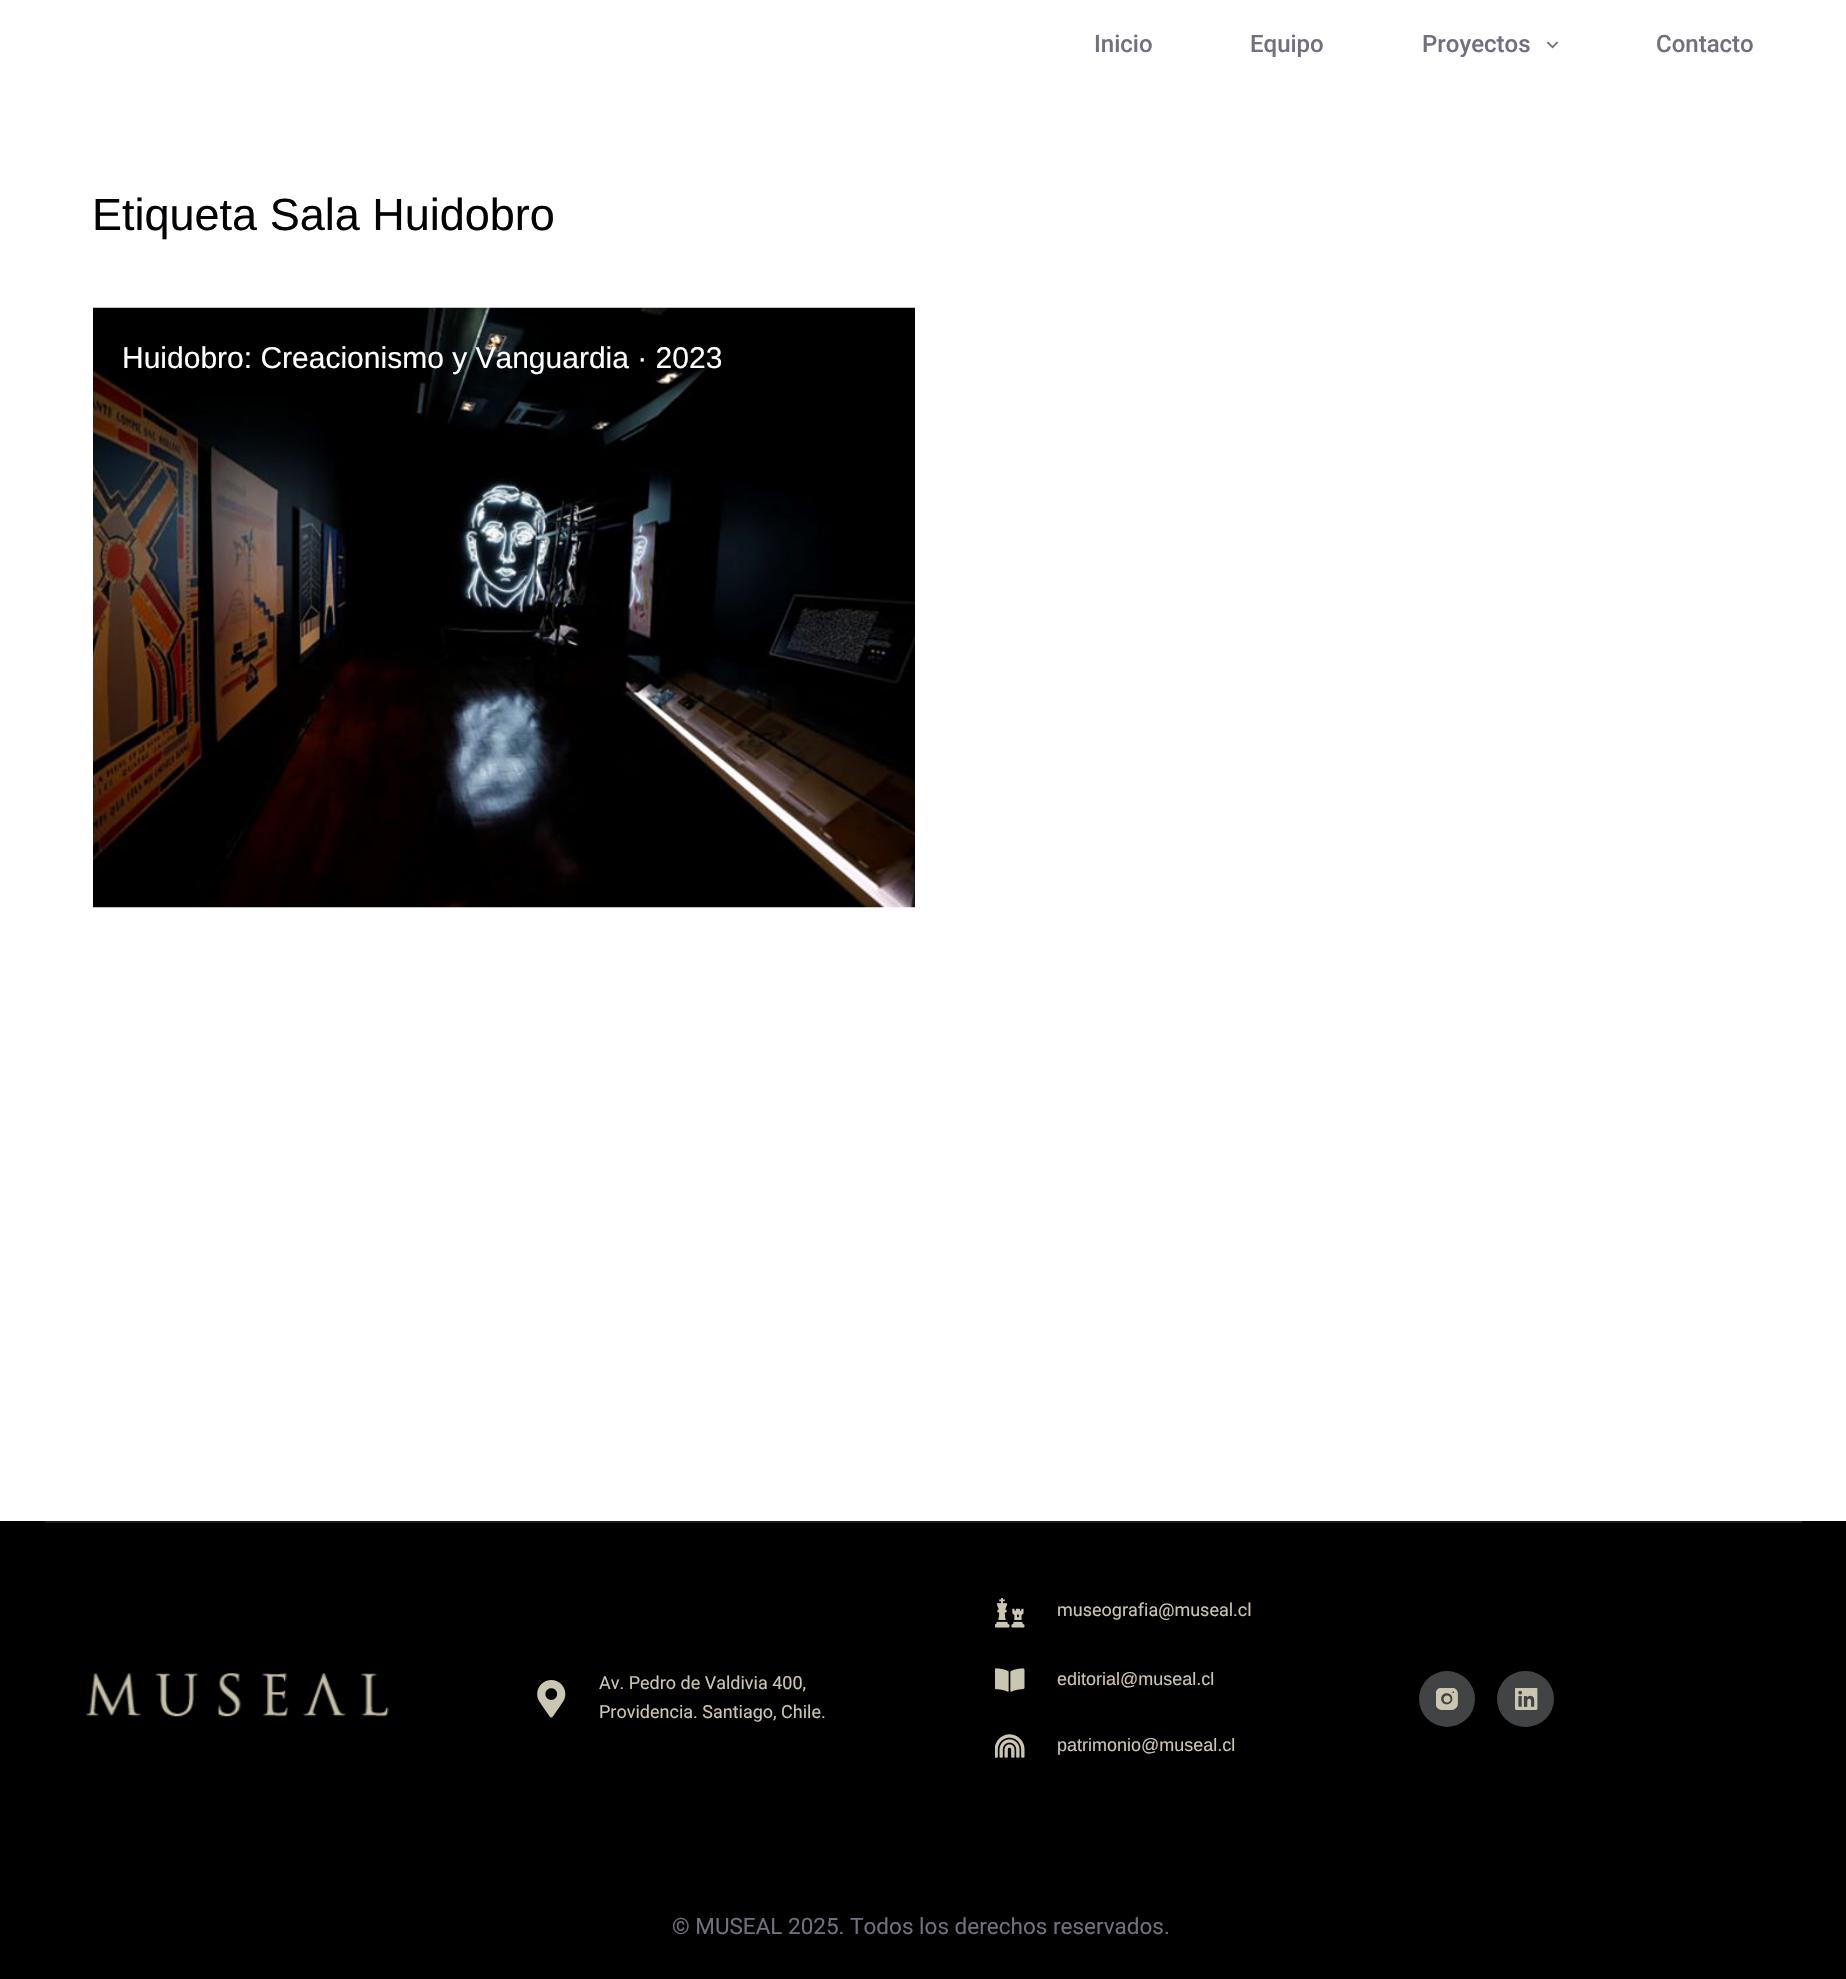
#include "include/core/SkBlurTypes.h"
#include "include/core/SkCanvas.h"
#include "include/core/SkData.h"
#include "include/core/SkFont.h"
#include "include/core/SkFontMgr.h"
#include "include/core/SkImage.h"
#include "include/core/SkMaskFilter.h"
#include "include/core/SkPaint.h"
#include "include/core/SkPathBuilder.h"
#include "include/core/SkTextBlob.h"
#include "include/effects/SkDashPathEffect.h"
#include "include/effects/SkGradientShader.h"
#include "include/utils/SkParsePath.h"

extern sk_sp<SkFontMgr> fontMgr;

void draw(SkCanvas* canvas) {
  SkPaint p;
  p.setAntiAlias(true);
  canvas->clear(SK_ColorWHITE);
  canvas->drawImageRect(SkImages::DeferredFromEncodedData(SkData::MakeFromFileName("images/1.png")), SkRect::MakeLTRB(1547, 41, 1559, 49), SkSamplingOptions());
  canvas->drawImageRect(SkImages::DeferredFromEncodedData(SkData::MakeFromFileName("images/2.png")), SkRect::MakeLTRB(93, 307, 915, 908), SkSamplingOptions());
  p.setColor(SK_ColorBLACK);
  canvas->drawRect(SkRect::MakeLTRB(0, 1521, 1846, 1979), p);
  p.setColor(SkColorSetRGB(26, 26, 26));
  canvas->drawRect(SkRect::MakeLTRB(45, 1521, 1802, 1523), p);
  canvas->drawImageRect(SkImages::DeferredFromEncodedData(SkData::MakeFromFileName("images/3.png")), SkRect::MakeLTRB(85, 1673, 390, 1717), SkSamplingOptions());
  canvas->drawImageRect(SkImages::DeferredFromEncodedData(SkData::MakeFromFileName("images/4.png")), SkRect::MakeLTRB(537, 1680, 566, 1718), SkSamplingOptions());
  canvas->drawImageRect(SkImages::DeferredFromEncodedData(SkData::MakeFromFileName("images/5.png")), SkRect::MakeLTRB(995, 1598, 1025, 1628), SkSamplingOptions());
  canvas->drawImageRect(SkImages::DeferredFromEncodedData(SkData::MakeFromFileName("images/6.png")), SkRect::MakeLTRB(995, 1668, 1025, 1692), SkSamplingOptions());
  canvas->drawImageRect(SkImages::DeferredFromEncodedData(SkData::MakeFromFileName("images/7.png")), SkRect::MakeLTRB(995, 1734, 1025, 1758), SkSamplingOptions());
  p.setColor(SkColorSetRGB(65, 67, 68));
  canvas->drawCircle(1447, 1699, 28, p);
  canvas->drawImageRect(SkImages::DeferredFromEncodedData(SkData::MakeFromFileName("images/8.png")), SkRect::MakeLTRB(1436, 1688, 1458, 1710), SkSamplingOptions());
  canvas->drawRoundRect(SkRect::MakeLTRB(1497, 1671, 1554, 1727), 28, 28, p);
  canvas->drawImageRect(SkImages::DeferredFromEncodedData(SkData::MakeFromFileName("images/9.png")), SkRect::MakeLTRB(1515, 1688, 1538, 1710), SkSamplingOptions());
  SkFont font1(fontMgr->matchFamilyStyle("Roboto", SkFontStyle(500, SkFontStyle::kNormal_Width, SkFontStyle::kUpright_Slant)), 24);
  font1.setSubpixel(true);
  p.setColor(SkColorSetRGB(112, 112, 126));
  canvas->drawString("Inicio", 1094, 52, font1, p);
  canvas->drawString("Equipo", 1250, 52, font1, p);
  canvas->drawString("Proyectos", 1422, 52, font1, p);
  canvas->drawString("Contacto", 1656, 52, font1, p);
  SkFont font2(fontMgr->matchFamilyStyle("Liberation Sans", SkFontStyle::Normal()), 45);
  font2.setSubpixel(true);
  p.setColor(SkColorSetRGB(3, 3, 6));
  canvas->drawString("Etiqueta Sala Huidobro", 92, 230, font2, p);
  SkFont font3(fontMgr->matchFamilyStyle("Liberation Sans", SkFontStyle::Normal()), 30);
  font3.setSubpixel(true);
  p.setColor(SK_ColorWHITE);
  canvas->drawString("Huidobro: Creacionismo y Vanguardia · 2023", 122, 368, font3, p);
  SkFont font4(fontMgr->matchFamilyStyle("Roboto", SkFontStyle::Normal()), 18);
  font4.setSubpixel(true);
  p.setColor(SkColorSetRGB(203, 198, 177));
  canvas->drawString("Av. Pedro de Valdivia 400,", 599, 1689, font4, p);
  canvas->drawString("Providencia. Santiago, Chile.", 599, 1718, font4, p);
  canvas->drawString("museografia@museal.cl", 1057, 1616, font4, p);
  SkFont font5(fontMgr->matchFamilyStyle("Liberation Sans", SkFontStyle::Normal()), 18);
  font5.setSubpixel(true);
  canvas->drawString("editorial@museal.cl", 1057, 1685, font5, p);
  canvas->drawString("patrimonio@museal.cl", 1057, 1751, font5, p);
  SkFont font6(fontMgr->matchFamilyStyle("Roboto", SkFontStyle::Normal()), 22.5f);
  font6.setSubpixel(true);
  p.setColor(SkColorSetRGB(112, 112, 126));
  canvas->drawString("© MUSEAL 2025. Todos los derechos reservados.", 672, 1934, font6, p);
}
